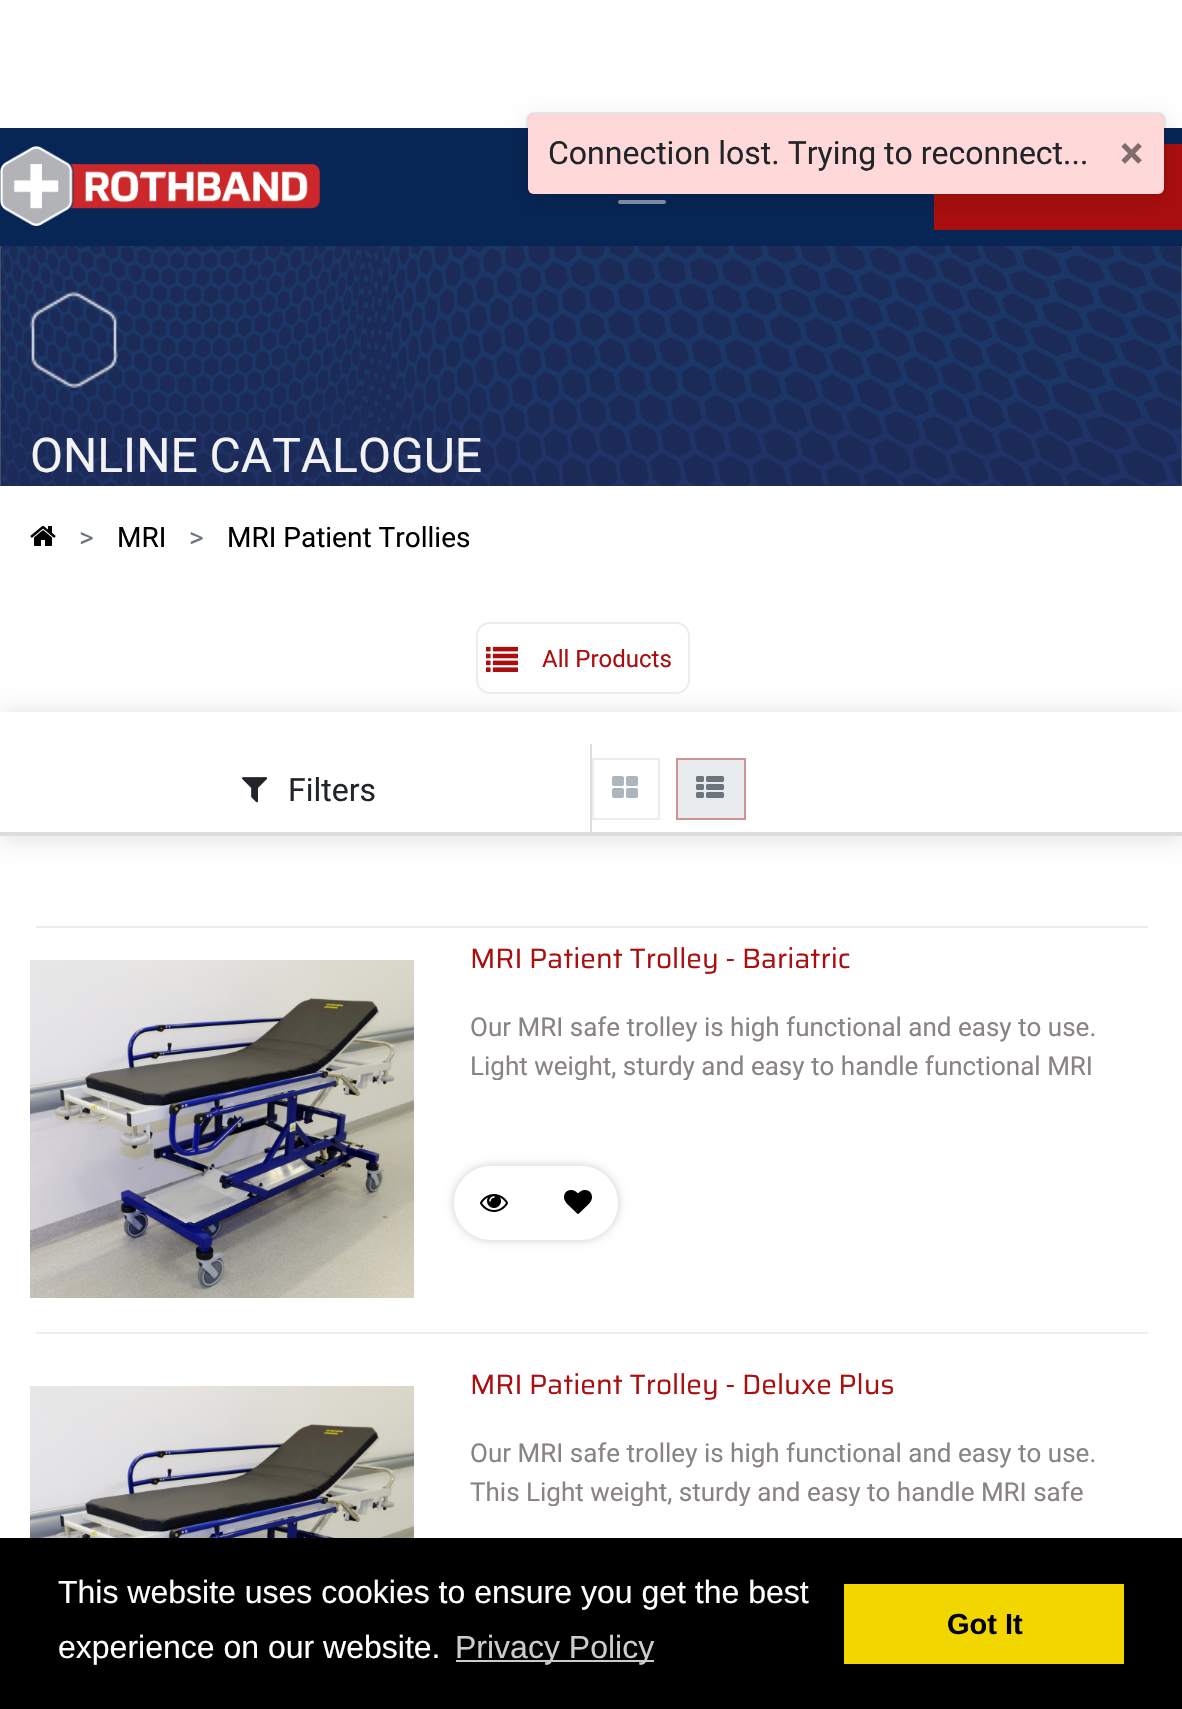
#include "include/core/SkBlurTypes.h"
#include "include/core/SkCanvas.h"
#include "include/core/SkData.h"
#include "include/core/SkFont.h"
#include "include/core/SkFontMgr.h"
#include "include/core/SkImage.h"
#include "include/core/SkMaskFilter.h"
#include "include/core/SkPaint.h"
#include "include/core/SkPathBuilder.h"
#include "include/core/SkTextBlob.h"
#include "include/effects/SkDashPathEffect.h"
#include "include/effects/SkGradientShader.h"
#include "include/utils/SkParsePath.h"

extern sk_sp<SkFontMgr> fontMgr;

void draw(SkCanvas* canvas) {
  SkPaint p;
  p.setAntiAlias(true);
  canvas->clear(SK_ColorWHITE);
  p.setColor(SkColorSetRGB(7, 38, 85));
  canvas->drawRect(SkRect::MakeLTRB(0, 128, 1182, 246), p);
  p.setStyle(SkPaint::kStroke_Style);
  p.setStrokeWidth(4);
  p.setStrokeCap(SkPaint::kRound_Cap);
  p.setColor(SkColorSetRGB(131, 147, 170));
  canvas->drawPath(SkPathBuilder().moveTo(620, 170).lineTo(664, 170).moveTo(620, 186).lineTo(664, 186).moveTo(620, 202).lineTo(664, 202).detach(), p);
  p.setStyle(SkPaint::kFill_Style);
  p.setColor(SkColorSetRGB(170, 14, 14));
  canvas->drawRect(SkRect::MakeLTRB(934, 144, 1182, 230), p);
  canvas->save();
  canvas->clipPath(SkPathBuilder(SkPathFillType::kEvenOdd).moveTo(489, 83).lineTo(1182, 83).lineTo(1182, 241).lineTo(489, 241).close().moveTo(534, 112).lineTo(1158, 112).cubicTo(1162.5f, 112, 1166, 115.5f, 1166, 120).lineTo(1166, 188).cubicTo(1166, 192.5f, 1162.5f, 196, 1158, 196).lineTo(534, 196).cubicTo(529.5f, 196, 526, 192.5f, 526, 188).lineTo(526, 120).cubicTo(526, 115.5f, 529.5f, 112, 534, 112).close().detach(), true);
  p.setColor(SkColorSetARGB(26, 0, 0, 0));
  p.setMaskFilter(SkMaskFilter::MakeBlur(kNormal_SkBlurStyle, 12));
  canvas->drawRoundRect(SkRect::MakeLTRB(526, 120, 1166, 204), 8, 8, p);
  p.setMaskFilter(nullptr);
  canvas->restore();
  p.setColor(SkColorSetRGB(255, 80, 80));
  canvas->drawRoundRect(SkRect::MakeLTRB(528, 114, 1164, 194), 6, 6, p);
  p.setStyle(SkPaint::kStroke_Style);
  p.setStrokeWidth(2);
  p.setStrokeCap(SkPaint::kButt_Cap);
  p.setColor(SkColorSetARGB(26, 0, 0, 0));
  canvas->drawRoundRect(SkRect::MakeLTRB(527, 113, 1165, 195), 7, 7, p);
  p.setStyle(SkPaint::kFill_Style);
  p.setColor(SkColorSetARGB(199, 255, 255, 255));
  canvas->drawRoundRect(SkRect::MakeLTRB(528, 114, 1164, 194), 6, 6, p);
  canvas->drawImageRect(SkImages::DeferredFromEncodedData(SkData::MakeFromFileName("images/1.png")), SkRect::MakeLTRB(0, 146, 320, 226), SkSamplingOptions());
  canvas->drawImageRect(SkImages::DeferredFromEncodedData(SkData::MakeFromFileName("images/2.png")), SkRect::MakeLTRB(0, 246, 1182, 486), SkSamplingOptions());
  canvas->drawImageRect(SkImages::DeferredFromEncodedData(SkData::MakeFromFileName("images/3.png")), SkRect::MakeLTRB(30, 291, 118, 388), SkSamplingOptions());
  canvas->drawImageRect(SkImages::DeferredFromEncodedData(SkData::MakeFromFileName("images/4.png")), SkRect::MakeLTRB(30, 526, 56, 546), SkSamplingOptions());
  p.setStyle(SkPaint::kStroke_Style);
  p.setColor(SkColorSetRGB(237, 237, 237));
  canvas->drawRoundRect(SkRect::MakeLTRB(477, 623, 689, 693), 13, 13, p);
  canvas->drawImageRect(SkImages::DeferredFromEncodedData(SkData::MakeFromFileName("images/5.png")), SkRect::MakeLTRB(486, 646, 518, 672), SkSamplingOptions());
  canvas->save();
  canvas->clipPath(SkPathBuilder(SkPathFillType::kEvenOdd).moveTo(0, 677).lineTo(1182, 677).lineTo(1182, 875).lineTo(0, 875).close().moveTo(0, 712).lineTo(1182, 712).lineTo(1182, 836).lineTo(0, 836).close().detach(), true);
  p.setStyle(SkPaint::kFill_Style);
  p.setColor(SkColorSetRGB(221, 221, 221));
  p.setMaskFilter(SkMaskFilter::MakeBlur(kNormal_SkBlurStyle, 12));
  canvas->drawRect(SkRect::MakeLTRB(0, 714, 1182, 838), p);
  p.setMaskFilter(nullptr);
  canvas->restore();
  canvas->drawRect(SkRect::MakeLTRB(0, 832, 1182, 836), p);
  canvas->drawRect(SkRect::MakeLTRB(590, 744, 592, 832), p);
  canvas->drawImageRect(SkImages::DeferredFromEncodedData(SkData::MakeFromFileName("images/6.png")), SkRect::MakeLTRB(242, 777, 268, 803), SkSamplingOptions());
  p.setStyle(SkPaint::kStroke_Style);
  p.setColor(SkColorSetRGB(237, 237, 237));
  canvas->drawRect(SkRect::MakeLTRB(593, 759, 659, 819), p);
  canvas->drawImageRect(SkImages::DeferredFromEncodedData(SkData::MakeFromFileName("images/7.png")), SkRect::MakeLTRB(612, 776, 638, 798), SkSamplingOptions());
  p.setStyle(SkPaint::kFill_Style);
  p.setColor(SkColorSetRGB(233, 236, 239));
  canvas->drawRect(SkRect::MakeLTRB(677, 759, 745, 819), p);
  p.setStyle(SkPaint::kStroke_Style);
  p.setColor(SkColorSetRGB(208, 147, 149));
  canvas->drawRect(SkRect::MakeLTRB(677, 759, 745, 819), p);
  canvas->drawImageRect(SkImages::DeferredFromEncodedData(SkData::MakeFromFileName("images/8.png")), SkRect::MakeLTRB(696, 776, 724, 798), SkSamplingOptions());
  p.setStyle(SkPaint::kFill_Style);
  p.setColor(SkColorSetRGB(237, 237, 237));
  canvas->drawRect(SkRect::MakeLTRB(36, 926, 1148, 928), p);
  canvas->drawRect(SkRect::MakeLTRB(36, 1332, 1148, 1334), p);
  canvas->drawImageRect(SkImages::DeferredFromEncodedData(SkData::MakeFromFileName("images/9.png")), SkRect::MakeLTRB(30, 960, 414, 1298), SkSamplingOptions());
  canvas->save();
  canvas->clipPath(SkPathBuilder(SkPathFillType::kEvenOdd).moveTo(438, 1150).lineTo(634, 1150).lineTo(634, 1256).lineTo(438, 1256).close().moveTo(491, 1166).lineTo(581, 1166).cubicTo(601.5f, 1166, 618, 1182.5f, 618, 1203).cubicTo(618, 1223.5f, 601.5f, 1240, 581, 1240).lineTo(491, 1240).cubicTo(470.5f, 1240, 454, 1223.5f, 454, 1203).cubicTo(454, 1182.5f, 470.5f, 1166, 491, 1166).close().detach(), true);
  p.setColor(SkColorSetARGB(51, 0, 0, 0));
  p.setMaskFilter(SkMaskFilter::MakeBlur(kNormal_SkBlurStyle, 5));
  canvas->drawRoundRect(SkRect::MakeLTRB(454, 1166, 618, 1240), 37, 37, p);
  p.setMaskFilter(nullptr);
  canvas->restore();
  canvas->drawImageRect(SkImages::DeferredFromEncodedData(SkData::MakeFromFileName("images/10.png")), SkRect::MakeLTRB(480, 1194, 508, 1212), SkSamplingOptions());
  p.setColor(SK_ColorWHITE);
  canvas->drawCircle(579, 1201, 35, p);
  canvas->drawImageRect(SkImages::DeferredFromEncodedData(SkData::MakeFromFileName("images/11.png")), SkRect::MakeLTRB(564, 1190, 592, 1214), SkSamplingOptions());
  canvas->drawImageRect(SkImages::DeferredFromEncodedData(SkData::MakeFromFileName("images/12.png")), SkRect::MakeLTRB(30, 1386, 414, 1538), SkSamplingOptions());
  p.setColor(SK_ColorBLACK);
  canvas->drawRect(SkRect::MakeLTRB(0, 1538, 1182, 1709), p);
  p.setColor(SkColorSetRGB(204, 204, 204));
  canvas->drawRect(SkRect::MakeLTRB(456, 1660, 654, 1662), p);
  p.setColor(SkColorSetRGB(241, 214, 0));
  canvas->drawRect(SkRect::MakeLTRB(844, 1584, 1124, 1664), p);
  SkFont font1(fontMgr->matchFamilyStyle("Roboto", SkFontStyle::Normal()), 32);
  font1.setSubpixel(true);
  p.setColor(SkColorSetRGB(33, 37, 41));
  canvas->drawString("Connection lost. Trying to reconnect...", 548, 164, font1, p);
  SkFont font2(fontMgr->matchFamilyStyle("Roboto", SkFontStyle::Bold()), 44);
  font2.setSubpixel(true);
  p.setColor(SkColorSetRGB(128, 108, 108));
  canvas->drawString("×", 1120, 168, font2, p);
  SkFont font3(fontMgr->matchFamilyStyle("Roboto", SkFontStyle::Normal()), 48);
  font3.setSubpixel(true);
  p.setColor(SkColorSetRGB(242, 242, 243));
  canvas->drawString("ONLINE CATALOGUE", 30, 472, font3, p);
  SkFont font4(fontMgr->matchFamilyStyle("Roboto", SkFontStyle::Normal()), 28);
  font4.setSubpixel(true);
  p.setColor(SkColorSetRGB(108, 117, 125));
  canvas->drawString(">", 79, 547, font4, p);
  p.setColor(SK_ColorBLACK);
  canvas->drawString("MRI", 117, 547, font4, p);
  p.setColor(SkColorSetRGB(108, 117, 125));
  canvas->drawString(">", 189, 547, font4, p);
  p.setColor(SK_ColorBLACK);
  canvas->drawString("MRI Patient Trollies", 227, 547, font4, p);
  SkFont font5(fontMgr->matchFamilyStyle("Roboto", SkFontStyle::Normal()), 24);
  font5.setSubpixel(true);
  p.setColor(SkColorSetRGB(170, 14, 14));
  canvas->drawString("All Products", 542, 667, font5, p);
  p.setColor(SkColorSetRGB(33, 37, 41));
  canvas->drawString("Filters", 288, 801, font1, p);
  SkFont font6(fontMgr->matchFamilyStyle("Saira", SkFontStyle::Normal()), 28);
  font6.setSubpixel(true);
  p.setColor(SkColorSetRGB(170, 14, 14));
  canvas->drawString("MRI Patient Trolley - Bariatric", 470, 968, font6, p);
  SkFont font7(fontMgr->matchFamilyStyle("Roboto", SkFontStyle::Normal()), 26);
  font7.setSubpixel(true);
  p.setColor(SkColorSetRGB(137, 131, 131));
  canvas->drawString("Our MRI safe trolley is high functional and easy to use.", 470, 1036, font7, p);
  canvas->save();
  canvas->clipRect(SkRect::MakeLTRB(470, 1008, 1104, 1080));
  canvas->drawString("Light weight, sturdy and easy to handle functional MRI", 470, 1075, font7, p);
  canvas->restore();
  p.setColor(SkColorSetRGB(170, 14, 14));
  canvas->drawString("MRI Patient Trolley - Deluxe Plus", 470, 1394, font6, p);
  p.setColor(SkColorSetRGB(137, 131, 131));
  canvas->drawString("Our MRI safe trolley is high functional and easy to use.", 470, 1462, font7, p);
  canvas->save();
  canvas->clipRect(SkRect::MakeLTRB(470, 1434, 1104, 1506));
  canvas->drawString("This Light weight, sturdy and easy to handle MRI safe", 470, 1501, font7, p);
  canvas->restore();
  SkFont font8(fontMgr->matchFamilyStyle("Liberation Sans", SkFontStyle::Normal()), 32);
  font8.setSubpixel(true);
  p.setColor(SK_ColorWHITE);
  canvas->drawString("This website uses cookies to ensure you get the best", 58, 1603, font8, p);
  canvas->drawString("experience on our website.", 58, 1658, font8, p);
  p.setColor(SkColorSetRGB(204, 204, 204));
  canvas->drawString("Privacy Policy", 455, 1658, font8, p);
  SkFont font9(fontMgr->matchFamilyStyle("Liberation Sans", SkFontStyle::Bold()), 29);
  font9.setSubpixel(true);
  p.setColor(SK_ColorBLACK);
  canvas->drawString("Got It", 947, 1634, font9, p);
}
